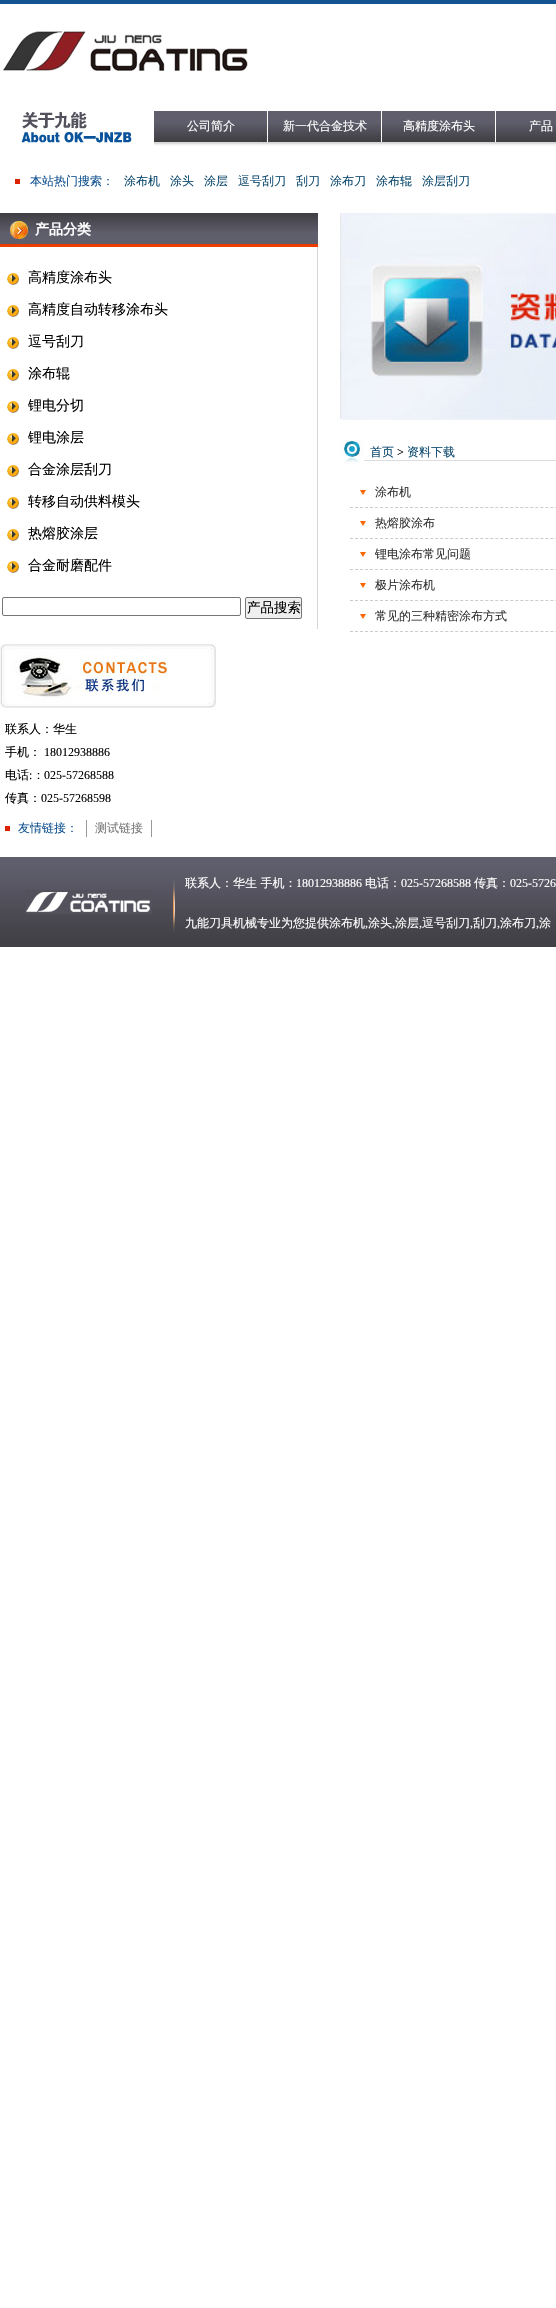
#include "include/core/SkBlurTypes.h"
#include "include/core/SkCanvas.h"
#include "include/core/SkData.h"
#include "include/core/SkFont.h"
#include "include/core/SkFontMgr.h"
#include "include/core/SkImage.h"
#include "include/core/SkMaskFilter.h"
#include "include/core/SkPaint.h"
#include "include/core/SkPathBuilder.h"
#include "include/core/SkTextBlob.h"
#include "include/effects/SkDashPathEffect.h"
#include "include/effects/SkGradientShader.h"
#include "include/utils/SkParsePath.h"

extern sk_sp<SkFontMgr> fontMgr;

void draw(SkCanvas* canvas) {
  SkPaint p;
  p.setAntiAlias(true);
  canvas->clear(SK_ColorWHITE);
  canvas->drawImageRect(SkImages::DeferredFromEncodedData(SkData::MakeFromFileName("images/1.png")), SkRect::MakeLTRB(0, 0, 556, 5), SkSamplingOptions());
  canvas->drawImageRect(SkImages::DeferredFromEncodedData(SkData::MakeFromFileName("images/2.png")), SkRect::MakeLTRB(3, 31, 248, 71), SkSamplingOptions());
  canvas->drawImageRect(SkImages::DeferredFromEncodedData(SkData::MakeFromFileName("images/3.png")), SkRect::MakeLTRB(21, 111, 132, 143), SkSamplingOptions());
  canvas->drawImageRect(SkImages::DeferredFromEncodedData(SkData::MakeFromFileName("images/4.png")), SkRect::MakeLTRB(154, 111, 268, 146), SkSamplingOptions());
  canvas->drawImageRect(SkImages::DeferredFromEncodedData(SkData::MakeFromFileName("images/4.png")), SkRect::MakeLTRB(268, 111, 382, 146), SkSamplingOptions());
  canvas->drawImageRect(SkImages::DeferredFromEncodedData(SkData::MakeFromFileName("images/4.png")), SkRect::MakeLTRB(382, 111, 496, 146), SkSamplingOptions());
  canvas->drawImageRect(SkImages::DeferredFromEncodedData(SkData::MakeFromFileName("images/5.png")), SkRect::MakeLTRB(496, 111, 556, 146), SkSamplingOptions());
  p.setColor(SkColorSetRGB(221, 34, 1));
  canvas->drawRect(SkRect::MakeLTRB(15, 179, 20, 184), p);
  p.setColor(SkColorSetRGB(214, 214, 214));
  canvas->drawRect(SkRect::MakeLTRB(317, 247, 318, 629), p);
  canvas->drawImageRect(SkImages::DeferredFromEncodedData(SkData::MakeFromFileName("images/6.png")), SkRect::MakeLTRB(0, 213, 318, 247), SkSamplingOptions());
  canvas->drawImageRect(SkImages::DeferredFromEncodedData(SkData::MakeFromFileName("images/7.png")), SkRect::MakeLTRB(7, 273, 19, 285), SkSamplingOptions());
  canvas->drawImageRect(SkImages::DeferredFromEncodedData(SkData::MakeFromFileName("images/7.png")), SkRect::MakeLTRB(7, 305, 19, 317), SkSamplingOptions());
  canvas->drawImageRect(SkImages::DeferredFromEncodedData(SkData::MakeFromFileName("images/7.png")), SkRect::MakeLTRB(7, 337, 19, 349), SkSamplingOptions());
  canvas->drawImageRect(SkImages::DeferredFromEncodedData(SkData::MakeFromFileName("images/7.png")), SkRect::MakeLTRB(7, 369, 19, 381), SkSamplingOptions());
  canvas->drawImageRect(SkImages::DeferredFromEncodedData(SkData::MakeFromFileName("images/7.png")), SkRect::MakeLTRB(7, 401, 19, 413), SkSamplingOptions());
  canvas->drawImageRect(SkImages::DeferredFromEncodedData(SkData::MakeFromFileName("images/7.png")), SkRect::MakeLTRB(7, 433, 19, 445), SkSamplingOptions());
  canvas->drawImageRect(SkImages::DeferredFromEncodedData(SkData::MakeFromFileName("images/7.png")), SkRect::MakeLTRB(7, 465, 19, 477), SkSamplingOptions());
  canvas->drawImageRect(SkImages::DeferredFromEncodedData(SkData::MakeFromFileName("images/7.png")), SkRect::MakeLTRB(7, 497, 19, 509), SkSamplingOptions());
  canvas->drawImageRect(SkImages::DeferredFromEncodedData(SkData::MakeFromFileName("images/7.png")), SkRect::MakeLTRB(7, 529, 19, 541), SkSamplingOptions());
  canvas->drawImageRect(SkImages::DeferredFromEncodedData(SkData::MakeFromFileName("images/7.png")), SkRect::MakeLTRB(7, 561, 19, 573), SkSamplingOptions());
  p.setStyle(SkPaint::kStroke_Style);
  p.setStrokeWidth(1);
  p.setColor(SkColorSetRGB(118, 118, 118));
  canvas->drawRoundRect(SkRect::MakeLTRB(2.5f, 597.5f, 240.5f, 615.5f), 1.5f, 1.5f, p);
  p.setStyle(SkPaint::kFill_Style);
  p.setColor(SkColorSetRGB(239, 239, 239));
  canvas->drawRoundRect(SkRect::MakeLTRB(245.5f, 597.5f, 301.5f, 618.5f), 1.5f, 1.5f, p);
  p.setStyle(SkPaint::kStroke_Style);
  p.setColor(SkColorSetRGB(118, 118, 118));
  canvas->drawRoundRect(SkRect::MakeLTRB(245.5f, 597.5f, 301.5f, 618.5f), 1.5f, 1.5f, p);
  canvas->drawImageRect(SkImages::DeferredFromEncodedData(SkData::MakeFromFileName("images/8.png")), SkRect::MakeLTRB(0, 644, 216, 708), SkSamplingOptions());
  canvas->drawImageRect(SkImages::DeferredFromEncodedData(SkData::MakeFromFileName("images/9.png")), SkRect::MakeLTRB(340, 213, 556, 420), SkSamplingOptions());
  canvas->drawImageRect(SkImages::DeferredFromEncodedData(SkData::MakeFromFileName("images/10.png")), SkRect::MakeLTRB(340, 440, 556, 464), SkSamplingOptions());
  canvas->drawImageRect(SkImages::DeferredFromEncodedData(SkData::MakeFromFileName("images/11.png")), SkRect::MakeLTRB(360, 490, 366, 495), SkSamplingOptions());
  p.setColor(SkColorSetRGB(204, 204, 204));
  p.setPathEffect(SkDashPathEffect::Make({{3, 2.01f}}, 0));
  canvas->drawPath(SkPathBuilder().moveTo(350, 507.5f).lineTo(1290, 507.5f).detach(), p);
  p.setPathEffect(nullptr);
  canvas->drawImageRect(SkImages::DeferredFromEncodedData(SkData::MakeFromFileName("images/11.png")), SkRect::MakeLTRB(360, 521, 366, 526), SkSamplingOptions());
  p.setPathEffect(SkDashPathEffect::Make({{3, 2.01f}}, 0));
  canvas->drawPath(SkPathBuilder().moveTo(350, 538.5f).lineTo(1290, 538.5f).detach(), p);
  p.setPathEffect(nullptr);
  canvas->drawImageRect(SkImages::DeferredFromEncodedData(SkData::MakeFromFileName("images/11.png")), SkRect::MakeLTRB(360, 552, 366, 557), SkSamplingOptions());
  p.setPathEffect(SkDashPathEffect::Make({{3, 2.01f}}, 0));
  canvas->drawPath(SkPathBuilder().moveTo(350, 569.5f).lineTo(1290, 569.5f).detach(), p);
  p.setPathEffect(nullptr);
  canvas->drawImageRect(SkImages::DeferredFromEncodedData(SkData::MakeFromFileName("images/11.png")), SkRect::MakeLTRB(360, 583, 366, 588), SkSamplingOptions());
  p.setPathEffect(SkDashPathEffect::Make({{3, 2.01f}}, 0));
  canvas->drawPath(SkPathBuilder().moveTo(350, 600.5f).lineTo(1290, 600.5f).detach(), p);
  p.setPathEffect(nullptr);
  canvas->drawImageRect(SkImages::DeferredFromEncodedData(SkData::MakeFromFileName("images/11.png")), SkRect::MakeLTRB(360, 614, 366, 619), SkSamplingOptions());
  p.setPathEffect(SkDashPathEffect::Make({{3, 2.01f}}, 0));
  canvas->drawPath(SkPathBuilder().moveTo(350, 631.5f).lineTo(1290, 631.5f).detach(), p);
  p.setPathEffect(nullptr);
  p.setStyle(SkPaint::kFill_Style);
  p.setColor(SkColorSetRGB(221, 34, 1));
  canvas->drawRect(SkRect::MakeLTRB(5, 826, 10, 831), p);
  p.setColor(SkColorSetRGB(153, 153, 153));
  canvas->drawRect(SkRect::MakeLTRB(86, 820, 87, 837), p);
  canvas->drawRect(SkRect::MakeLTRB(151, 820, 152, 837), p);
  canvas->drawImageRect(SkImages::DeferredFromEncodedData(SkData::MakeFromFileName("images/12.png")), SkRect::MakeLTRB(0, 857, 556, 947), SkSamplingOptions());
  canvas->drawImageRect(SkImages::DeferredFromEncodedData(SkData::MakeFromFileName("images/13.png")), SkRect::MakeLTRB(173, 879, 175, 932), SkSamplingOptions());
  canvas->drawImageRect(SkImages::DeferredFromEncodedData(SkData::MakeFromFileName("images/14.png")), SkRect::MakeLTRB(25, 890, 152, 914), SkSamplingOptions());
  SkFont font1(fontMgr->matchFamilyStyle("WenQuanYi Zen Hei", SkFontStyle(500, SkFontStyle::kNormal_Width, SkFontStyle::kUpright_Slant)), 12);
  font1.setSubpixel(true);
  p.setColor(SK_ColorWHITE);
  canvas->drawString("公司简介", 187, 130, font1, p);
  canvas->drawString("新一代合金技术", 283, 130, font1, p);
  canvas->drawString("高精度涂布头", 403, 130, font1, p);
  canvas->drawString("产品", 529, 130, font1, p);
  p.setColor(SkColorSetRGB(19, 83, 145));
  canvas->drawString("本站热门搜索：", 30, 185, font1, p);
  p.setColor(SkColorSetRGB(13, 73, 110));
  canvas->drawString("涂布机", 124, 185, font1, p);
  canvas->drawString("涂头", 170, 185, font1, p);
  canvas->drawString("涂层", 204, 185, font1, p);
  canvas->drawString("逗号刮刀", 238, 185, font1, p);
  canvas->drawString("刮刀", 296, 185, font1, p);
  canvas->drawString("涂布刀", 330, 185, font1, p);
  canvas->drawString("涂布辊", 376, 185, font1, p);
  canvas->drawString("涂层刮刀", 422, 185, font1, p);
  SkFont font2(fontMgr->matchFamilyStyle("WenQuanYi Zen Hei", SkFontStyle::Bold()), 14);
  font2.setSubpixel(true);
  p.setColor(SK_ColorWHITE);
  canvas->drawString("产品分类", 35, 234, font2, p);
  SkFont font3(fontMgr->matchFamilyStyle("WenQuanYi Zen Hei", SkFontStyle(500, SkFontStyle::kNormal_Width, SkFontStyle::kUpright_Slant)), 14);
  font3.setSubpixel(true);
  p.setColor(SK_ColorBLACK);
  canvas->drawString("高精度涂布头", 28, 282, font3, p);
  canvas->drawString("高精度自动转移涂布头", 28, 314, font3, p);
  canvas->drawString("逗号刮刀", 28, 346, font3, p);
  canvas->drawString("涂布辊", 28, 378, font3, p);
  canvas->drawString("锂电分切", 28, 410, font3, p);
  canvas->drawString("锂电涂层", 28, 442, font3, p);
  canvas->drawString("合金涂层刮刀", 28, 474, font3, p);
  canvas->drawString("转移自动供料模头", 28, 506, font3, p);
  canvas->drawString("热熔胶涂层", 28, 538, font3, p);
  canvas->drawString("合金耐磨配件", 28, 570, font3, p);
  SkFont font4(fontMgr->matchFamilyStyle("WenQuanYi Zen Hei", SkFontStyle(500, SkFontStyle::kNormal_Width, SkFontStyle::kUpright_Slant)), 13.5f);
  font4.setSubpixel(true);
  canvas->drawString("产品搜索", 247, 612, font4, p);
  canvas->drawString("联系人：华生", 5, 733, font1, p);
  canvas->drawString("手机：", 5, 756, font1, p);
  SkFont font5(fontMgr->matchFamilyStyle("Liberation Serif", SkFontStyle::Normal()), 12);
  font5.setSubpixel(true);
  canvas->drawString("18012938886", 44, 756, font5, p);
  canvas->drawString("电话 ：", 5, 779, font1, p);
  canvas->drawString("025-57268588", 44, 779, font5, p);
  canvas->drawString(":", 29, 779, font5, p);
  canvas->drawString("传真：", 5, 802, font1, p);
  canvas->drawString("025-57268598", 41, 802, font5, p);
  p.setColor(SkColorSetRGB(13, 73, 110));
  canvas->drawString("首页", 370, 456, font1, p);
  p.setColor(SK_ColorBLACK);
  canvas->drawString(">", 397, 456, font5, p);
  p.setColor(SkColorSetRGB(13, 73, 110));
  canvas->drawString("资料下载", 407, 456, font1, p);
  p.setColor(SkColorSetRGB(51, 51, 51));
  canvas->drawString("涂布机", 375, 496, font1, p);
  canvas->drawString("热熔胶涂布", 375, 527, font1, p);
  canvas->drawString("锂电涂布常见问题", 375, 558, font1, p);
  canvas->drawString("极片涂布机", 375, 589, font1, p);
  canvas->drawString("常见的三种精密涂布方式", 375, 620, font1, p);
  p.setColor(SkColorSetRGB(19, 83, 145));
  canvas->drawString("友情链接：", 18, 832, font1, p);
  p.setColor(SkColorSetRGB(117, 117, 117));
  canvas->drawString("测试链接", 95, 832, font1, p);
  p.setColor(SK_ColorWHITE);
  canvas->drawString("联系人：华生 手机：", 185, 887, font1, p);
  canvas->drawString("18012938886", 296, 887, font5, p);
  canvas->drawString("电话：", 365, 887, font1, p);
  canvas->drawString("025-57268588", 401, 887, font5, p);
  canvas->drawString("传真：", 474, 887, font1, p);
  canvas->drawString("025-5726", 510, 887, font5, p);
  canvas->drawString("九能刀具机械专业为您提供涂布机", 185, 927, font1, p);
  canvas->drawString(",", 365, 927, font5, p);
  canvas->drawString("涂头", 368, 927, font1, p);
  canvas->drawString(",", 392, 927, font5, p);
  canvas->drawString("涂层", 395, 927, font1, p);
  canvas->drawString(",", 419, 927, font5, p);
  canvas->drawString("逗号刮刀", 422, 927, font1, p);
  canvas->drawString(",", 470, 927, font5, p);
  canvas->drawString("刮刀", 473, 927, font1, p);
  canvas->drawString(",", 497, 927, font5, p);
  canvas->drawString("涂布刀", 500, 927, font1, p);
  canvas->drawString(",", 536, 927, font5, p);
  canvas->drawString("涂", 539, 927, font1, p);
}
